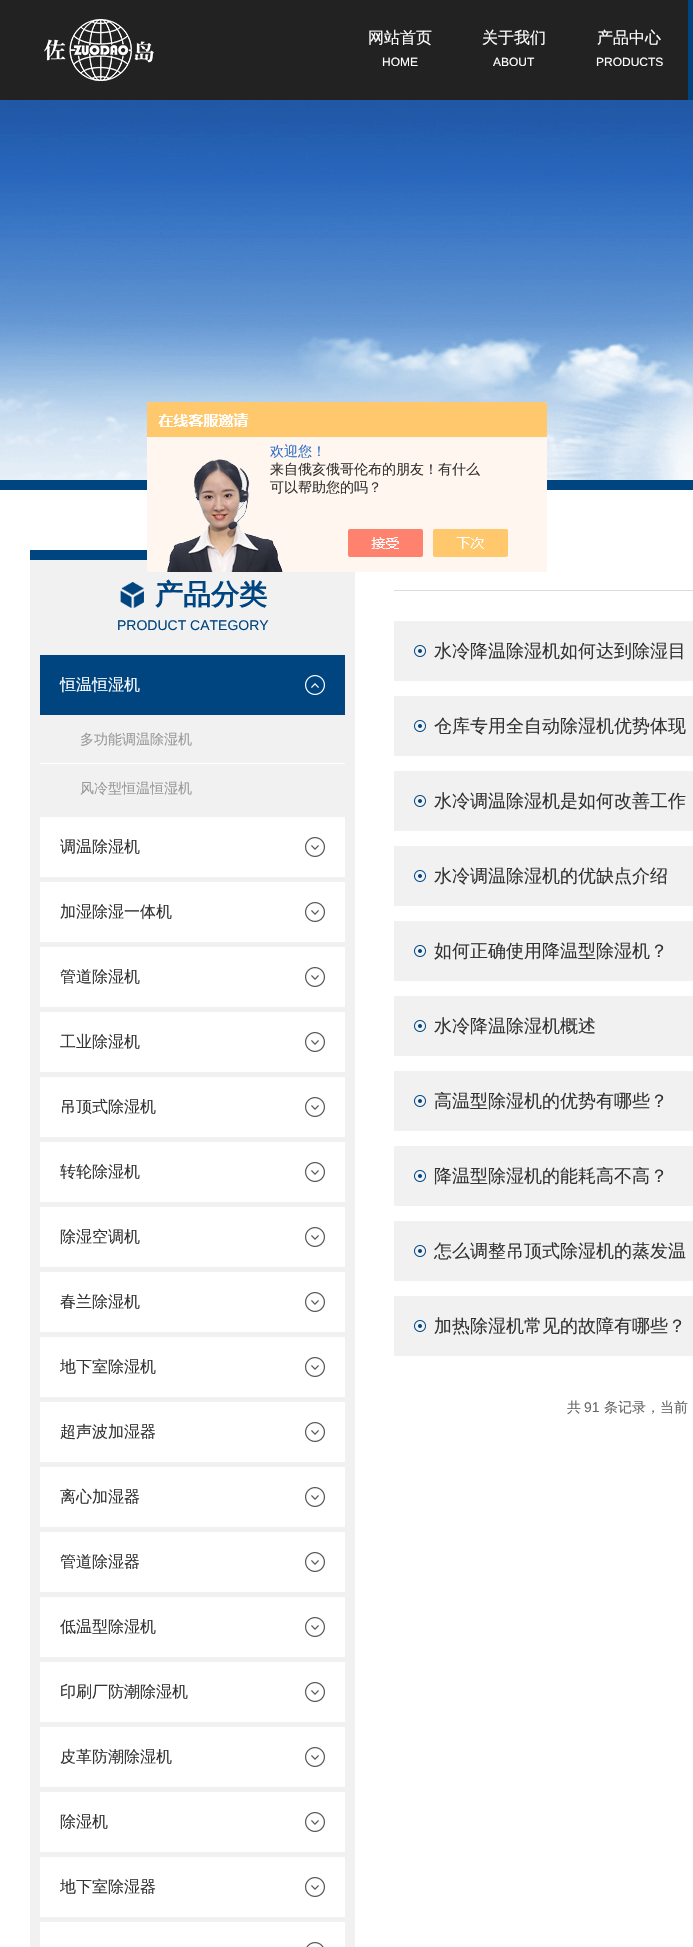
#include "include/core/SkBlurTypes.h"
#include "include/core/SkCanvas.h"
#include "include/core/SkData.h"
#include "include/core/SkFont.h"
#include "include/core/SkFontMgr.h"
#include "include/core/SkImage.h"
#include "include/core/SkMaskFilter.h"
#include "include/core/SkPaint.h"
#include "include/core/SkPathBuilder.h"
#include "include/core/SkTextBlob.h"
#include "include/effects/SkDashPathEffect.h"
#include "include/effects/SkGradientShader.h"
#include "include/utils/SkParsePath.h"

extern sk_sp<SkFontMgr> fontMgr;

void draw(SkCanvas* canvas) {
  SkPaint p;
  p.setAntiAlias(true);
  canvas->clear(SK_ColorWHITE);
  p.setColor(SkColorSetRGB(34, 34, 34));
  canvas->drawRect(SkRect::MakeLTRB(0, 0, 688, 100), p);
  canvas->drawImageRect(SkImages::DeferredFromEncodedData(SkData::MakeFromFileName("images/1.png")), SkRect::MakeLTRB(44, 19, 154, 81), SkSamplingOptions());
  p.setColor(SkColorSetRGB(0, 69, 128));
  canvas->drawRect(SkRect::MakeLTRB(688, 0, 693, 100), p);
  canvas->drawRect(SkRect::MakeLTRB(0, 480, 693, 490), p);
  canvas->drawImageRect(SkImages::DeferredFromEncodedData(SkData::MakeFromFileName("images/2.png")), SkRect::MakeLTRB(0, 100, 693, 480), SkSamplingOptions());
  p.setColor(SkColorSetRGB(241, 241, 241));
  canvas->drawRect(SkRect::MakeLTRB(30, 560, 355, 1947), p);
  canvas->drawImageRect(SkImages::DeferredFromEncodedData(SkData::MakeFromFileName("images/3.png")), SkRect::MakeLTRB(147, 402, 547, 572), SkSamplingOptions());
  p.setColor(SkColorSetRGB(0, 69, 128));
  canvas->drawRect(SkRect::MakeLTRB(30, 550, 147, 560), p);
  canvas->drawImageRect(SkImages::DeferredFromEncodedData(SkData::MakeFromFileName("images/4.png")), SkRect::MakeLTRB(120, 582, 144, 608), SkSamplingOptions());
  canvas->drawRect(SkRect::MakeLTRB(40, 655, 345, 715), p);
  canvas->drawImageRect(SkImages::DeferredFromEncodedData(SkData::MakeFromFileName("images/5.png")), SkRect::MakeLTRB(305, 675, 325, 695), SkSamplingOptions());
  p.setColor(SK_ColorWHITE);
  canvas->drawRect(SkRect::MakeLTRB(40, 763, 345, 764), p);
  canvas->drawRect(SkRect::MakeLTRB(40, 817, 345, 877), p);
  canvas->drawImageRect(SkImages::DeferredFromEncodedData(SkData::MakeFromFileName("images/6.png")), SkRect::MakeLTRB(305, 837, 325, 857), SkSamplingOptions());
  canvas->drawRect(SkRect::MakeLTRB(40, 882, 345, 942), p);
  canvas->drawImageRect(SkImages::DeferredFromEncodedData(SkData::MakeFromFileName("images/6.png")), SkRect::MakeLTRB(305, 902, 325, 922), SkSamplingOptions());
  canvas->drawRect(SkRect::MakeLTRB(40, 947, 345, 1007), p);
  canvas->drawImageRect(SkImages::DeferredFromEncodedData(SkData::MakeFromFileName("images/6.png")), SkRect::MakeLTRB(305, 967, 325, 987), SkSamplingOptions());
  canvas->drawRect(SkRect::MakeLTRB(40, 1012, 345, 1072), p);
  canvas->drawImageRect(SkImages::DeferredFromEncodedData(SkData::MakeFromFileName("images/6.png")), SkRect::MakeLTRB(305, 1032, 325, 1052), SkSamplingOptions());
  canvas->drawRect(SkRect::MakeLTRB(40, 1077, 345, 1137), p);
  canvas->drawImageRect(SkImages::DeferredFromEncodedData(SkData::MakeFromFileName("images/6.png")), SkRect::MakeLTRB(305, 1097, 325, 1117), SkSamplingOptions());
  canvas->drawRect(SkRect::MakeLTRB(40, 1142, 345, 1202), p);
  canvas->drawImageRect(SkImages::DeferredFromEncodedData(SkData::MakeFromFileName("images/6.png")), SkRect::MakeLTRB(305, 1162, 325, 1182), SkSamplingOptions());
  canvas->drawRect(SkRect::MakeLTRB(40, 1207, 345, 1267), p);
  canvas->drawImageRect(SkImages::DeferredFromEncodedData(SkData::MakeFromFileName("images/6.png")), SkRect::MakeLTRB(305, 1227, 325, 1247), SkSamplingOptions());
  canvas->drawRect(SkRect::MakeLTRB(40, 1272, 345, 1332), p);
  canvas->drawImageRect(SkImages::DeferredFromEncodedData(SkData::MakeFromFileName("images/6.png")), SkRect::MakeLTRB(305, 1292, 325, 1312), SkSamplingOptions());
  canvas->drawRect(SkRect::MakeLTRB(40, 1337, 345, 1397), p);
  canvas->drawImageRect(SkImages::DeferredFromEncodedData(SkData::MakeFromFileName("images/6.png")), SkRect::MakeLTRB(305, 1357, 325, 1377), SkSamplingOptions());
  canvas->drawRect(SkRect::MakeLTRB(40, 1402, 345, 1462), p);
  canvas->drawImageRect(SkImages::DeferredFromEncodedData(SkData::MakeFromFileName("images/6.png")), SkRect::MakeLTRB(305, 1422, 325, 1442), SkSamplingOptions());
  canvas->drawRect(SkRect::MakeLTRB(40, 1467, 345, 1527), p);
  canvas->drawImageRect(SkImages::DeferredFromEncodedData(SkData::MakeFromFileName("images/6.png")), SkRect::MakeLTRB(305, 1487, 325, 1507), SkSamplingOptions());
  canvas->drawRect(SkRect::MakeLTRB(40, 1532, 345, 1592), p);
  canvas->drawImageRect(SkImages::DeferredFromEncodedData(SkData::MakeFromFileName("images/6.png")), SkRect::MakeLTRB(305, 1552, 325, 1572), SkSamplingOptions());
  canvas->drawRect(SkRect::MakeLTRB(40, 1597, 345, 1657), p);
  canvas->drawImageRect(SkImages::DeferredFromEncodedData(SkData::MakeFromFileName("images/6.png")), SkRect::MakeLTRB(305, 1617, 325, 1637), SkSamplingOptions());
  canvas->drawRect(SkRect::MakeLTRB(40, 1662, 345, 1722), p);
  canvas->drawImageRect(SkImages::DeferredFromEncodedData(SkData::MakeFromFileName("images/6.png")), SkRect::MakeLTRB(305, 1682, 325, 1702), SkSamplingOptions());
  canvas->drawRect(SkRect::MakeLTRB(40, 1727, 345, 1787), p);
  canvas->drawImageRect(SkImages::DeferredFromEncodedData(SkData::MakeFromFileName("images/6.png")), SkRect::MakeLTRB(305, 1747, 325, 1767), SkSamplingOptions());
  canvas->drawRect(SkRect::MakeLTRB(40, 1792, 345, 1852), p);
  canvas->drawImageRect(SkImages::DeferredFromEncodedData(SkData::MakeFromFileName("images/6.png")), SkRect::MakeLTRB(305, 1812, 325, 1832), SkSamplingOptions());
  canvas->drawRect(SkRect::MakeLTRB(40, 1857, 345, 1917), p);
  canvas->drawImageRect(SkImages::DeferredFromEncodedData(SkData::MakeFromFileName("images/6.png")), SkRect::MakeLTRB(305, 1877, 325, 1897), SkSamplingOptions());
  canvas->drawRect(SkRect::MakeLTRB(40, 1922, 345, 1947), p);
  canvas->drawImageRect(SkImages::DeferredFromEncodedData(SkData::MakeFromFileName("images/7.png")), SkRect::MakeLTRB(306, 1942, 324, 1947), SkSamplingOptions());
  p.setColor(SkColorSetRGB(221, 221, 221));
  canvas->drawRect(SkRect::MakeLTRB(394, 590, 693, 591), p);
  p.setColor(SkColorSetRGB(241, 241, 241));
  canvas->drawRect(SkRect::MakeLTRB(394, 621, 693, 681), p);
  canvas->drawImageRect(SkImages::DeferredFromEncodedData(SkData::MakeFromFileName("images/8.png")), SkRect::MakeLTRB(414, 645, 426, 657), SkSamplingOptions());
  canvas->drawRect(SkRect::MakeLTRB(394, 696, 693, 756), p);
  canvas->drawImageRect(SkImages::DeferredFromEncodedData(SkData::MakeFromFileName("images/8.png")), SkRect::MakeLTRB(414, 720, 426, 732), SkSamplingOptions());
  canvas->drawRect(SkRect::MakeLTRB(394, 771, 693, 831), p);
  canvas->drawImageRect(SkImages::DeferredFromEncodedData(SkData::MakeFromFileName("images/8.png")), SkRect::MakeLTRB(414, 795, 426, 807), SkSamplingOptions());
  canvas->drawRect(SkRect::MakeLTRB(394, 846, 693, 906), p);
  canvas->drawImageRect(SkImages::DeferredFromEncodedData(SkData::MakeFromFileName("images/8.png")), SkRect::MakeLTRB(414, 870, 426, 882), SkSamplingOptions());
  canvas->drawRect(SkRect::MakeLTRB(394, 921, 693, 981), p);
  canvas->drawImageRect(SkImages::DeferredFromEncodedData(SkData::MakeFromFileName("images/8.png")), SkRect::MakeLTRB(414, 945, 426, 957), SkSamplingOptions());
  canvas->drawRect(SkRect::MakeLTRB(394, 996, 693, 1056), p);
  canvas->drawImageRect(SkImages::DeferredFromEncodedData(SkData::MakeFromFileName("images/8.png")), SkRect::MakeLTRB(414, 1020, 426, 1032), SkSamplingOptions());
  canvas->drawRect(SkRect::MakeLTRB(394, 1071, 693, 1131), p);
  canvas->drawImageRect(SkImages::DeferredFromEncodedData(SkData::MakeFromFileName("images/8.png")), SkRect::MakeLTRB(414, 1095, 426, 1107), SkSamplingOptions());
  canvas->drawRect(SkRect::MakeLTRB(394, 1146, 693, 1206), p);
  canvas->drawImageRect(SkImages::DeferredFromEncodedData(SkData::MakeFromFileName("images/8.png")), SkRect::MakeLTRB(414, 1170, 426, 1182), SkSamplingOptions());
  canvas->drawRect(SkRect::MakeLTRB(394, 1221, 693, 1281), p);
  canvas->drawImageRect(SkImages::DeferredFromEncodedData(SkData::MakeFromFileName("images/8.png")), SkRect::MakeLTRB(414, 1245, 426, 1257), SkSamplingOptions());
  canvas->drawRect(SkRect::MakeLTRB(394, 1296, 693, 1356), p);
  canvas->drawImageRect(SkImages::DeferredFromEncodedData(SkData::MakeFromFileName("images/8.png")), SkRect::MakeLTRB(414, 1320, 426, 1332), SkSamplingOptions());
  SkFont font1(fontMgr->matchFamilyStyle("WenQuanYi Zen Hei", SkFontStyle(500, SkFontStyle::kNormal_Width, SkFontStyle::kUpright_Slant)), 16);
  font1.setSubpixel(true);
  p.setColor(SK_ColorWHITE);
  canvas->drawString("网站首页", 368, 43, font1, p);
  SkFont font2(fontMgr->matchFamilyStyle("Liberation Sans", SkFontStyle::Normal()), 12);
  font2.setSubpixel(true);
  canvas->drawString("HOME", 382, 66, font2, p);
  canvas->drawString("关于我们", 482, 43, font1, p);
  canvas->drawString("ABOUT", 493, 66, font2, p);
  canvas->drawString("产品中心", 597, 43, font1, p);
  canvas->drawString("PRODUCTS", 596, 66, font2, p);
  SkFont font3(fontMgr->matchFamilyStyle("WenQuanYi Zen Hei", SkFontStyle(500, SkFontStyle::kNormal_Width, SkFontStyle::kUpright_Slant)), 14);
  font3.setSubpixel(true);
  p.setColor(SkColorSetRGB(46, 110, 198));
  canvas->drawString("欢迎您！", 270, 456, font3, p);
  p.setColor(SkColorSetRGB(51, 51, 51));
  canvas->drawString("来自俄亥俄哥伦布的朋友！有什么", 270, 474, font3, p);
  canvas->drawString("可以帮助您的吗？", 270, 492, font3, p);
  SkFont font4(fontMgr->matchFamilyStyle("WenQuanYi Zen Hei", SkFontStyle::Bold()), 28);
  font4.setSubpixel(true);
  p.setColor(SkColorSetRGB(0, 69, 128));
  canvas->drawString("产品分类", 155, 604, font4, p);
  SkFont font5(fontMgr->matchFamilyStyle("Liberation Sans", SkFontStyle::Normal()), 14);
  font5.setSubpixel(true);
  canvas->drawString("PRODUCT CATEGORY", 117, 630, font5, p);
  p.setColor(SK_ColorWHITE);
  canvas->drawString("恒温恒湿机", 60, 690, font1, p);
  p.setColor(SkColorSetRGB(153, 153, 153));
  canvas->drawString("多功能调温除湿机", 80, 744, font3, p);
  canvas->drawString("风冷型恒温恒湿机", 80, 793, font3, p);
  p.setColor(SkColorSetRGB(51, 51, 51));
  canvas->drawString("调温除湿机", 60, 852, font1, p);
  canvas->drawString("加湿除湿一体机", 60, 917, font1, p);
  canvas->drawString("管道除湿机", 60, 982, font1, p);
  canvas->drawString("工业除湿机", 60, 1047, font1, p);
  canvas->drawString("吊顶式除湿机", 60, 1112, font1, p);
  canvas->drawString("转轮除湿机", 60, 1177, font1, p);
  canvas->drawString("除湿空调机", 60, 1242, font1, p);
  canvas->drawString("春兰除湿机", 60, 1307, font1, p);
  canvas->drawString("地下室除湿机", 60, 1372, font1, p);
  canvas->drawString("超声波加湿器", 60, 1437, font1, p);
  canvas->drawString("离心加湿器", 60, 1502, font1, p);
  canvas->drawString("管道除湿器", 60, 1567, font1, p);
  canvas->drawString("低温型除湿机", 60, 1632, font1, p);
  canvas->drawString("印刷厂防潮除湿机", 60, 1697, font1, p);
  canvas->drawString("皮革防潮除湿机", 60, 1762, font1, p);
  canvas->drawString("除湿机", 60, 1827, font1, p);
  canvas->drawString("地下室除湿器", 60, 1892, font1, p);
  SkFont font6(fontMgr->matchFamilyStyle("WenQuanYi Zen Hei", SkFontStyle(500, SkFontStyle::kNormal_Width, SkFontStyle::kUpright_Slant)), 18);
  font6.setSubpixel(true);
  canvas->drawString("水冷降温除湿机如何达到除湿目", 434, 657, font6, p);
  canvas->drawString("仓库专用全自动除湿机优势体现", 434, 732, font6, p);
  canvas->drawString("水冷调温除湿机是如何改善工作", 434, 807, font6, p);
  canvas->drawString("水冷调温除湿机的优缺点介绍", 434, 882, font6, p);
  canvas->drawString("如何正确使用降温型除湿机？", 434, 957, font6, p);
  canvas->drawString("水冷降温除湿机概述", 434, 1032, font6, p);
  canvas->drawString("高温型除湿机的优势有哪些？", 434, 1107, font6, p);
  canvas->drawString("降温型除湿机的能耗高不高？", 434, 1182, font6, p);
  canvas->drawString("怎么调整吊顶式除湿机的蒸发温", 434, 1257, font6, p);
  canvas->drawString("加热除湿机常见的故障有哪些？", 434, 1332, font6, p);
  p.setColor(SkColorSetRGB(102, 102, 102));
  canvas->drawString("共", 567, 1412, font3, p);
  canvas->drawString("91", 584, 1412, font5, p);
  canvas->drawString("条记录，当前", 604, 1412, font3, p);
}
